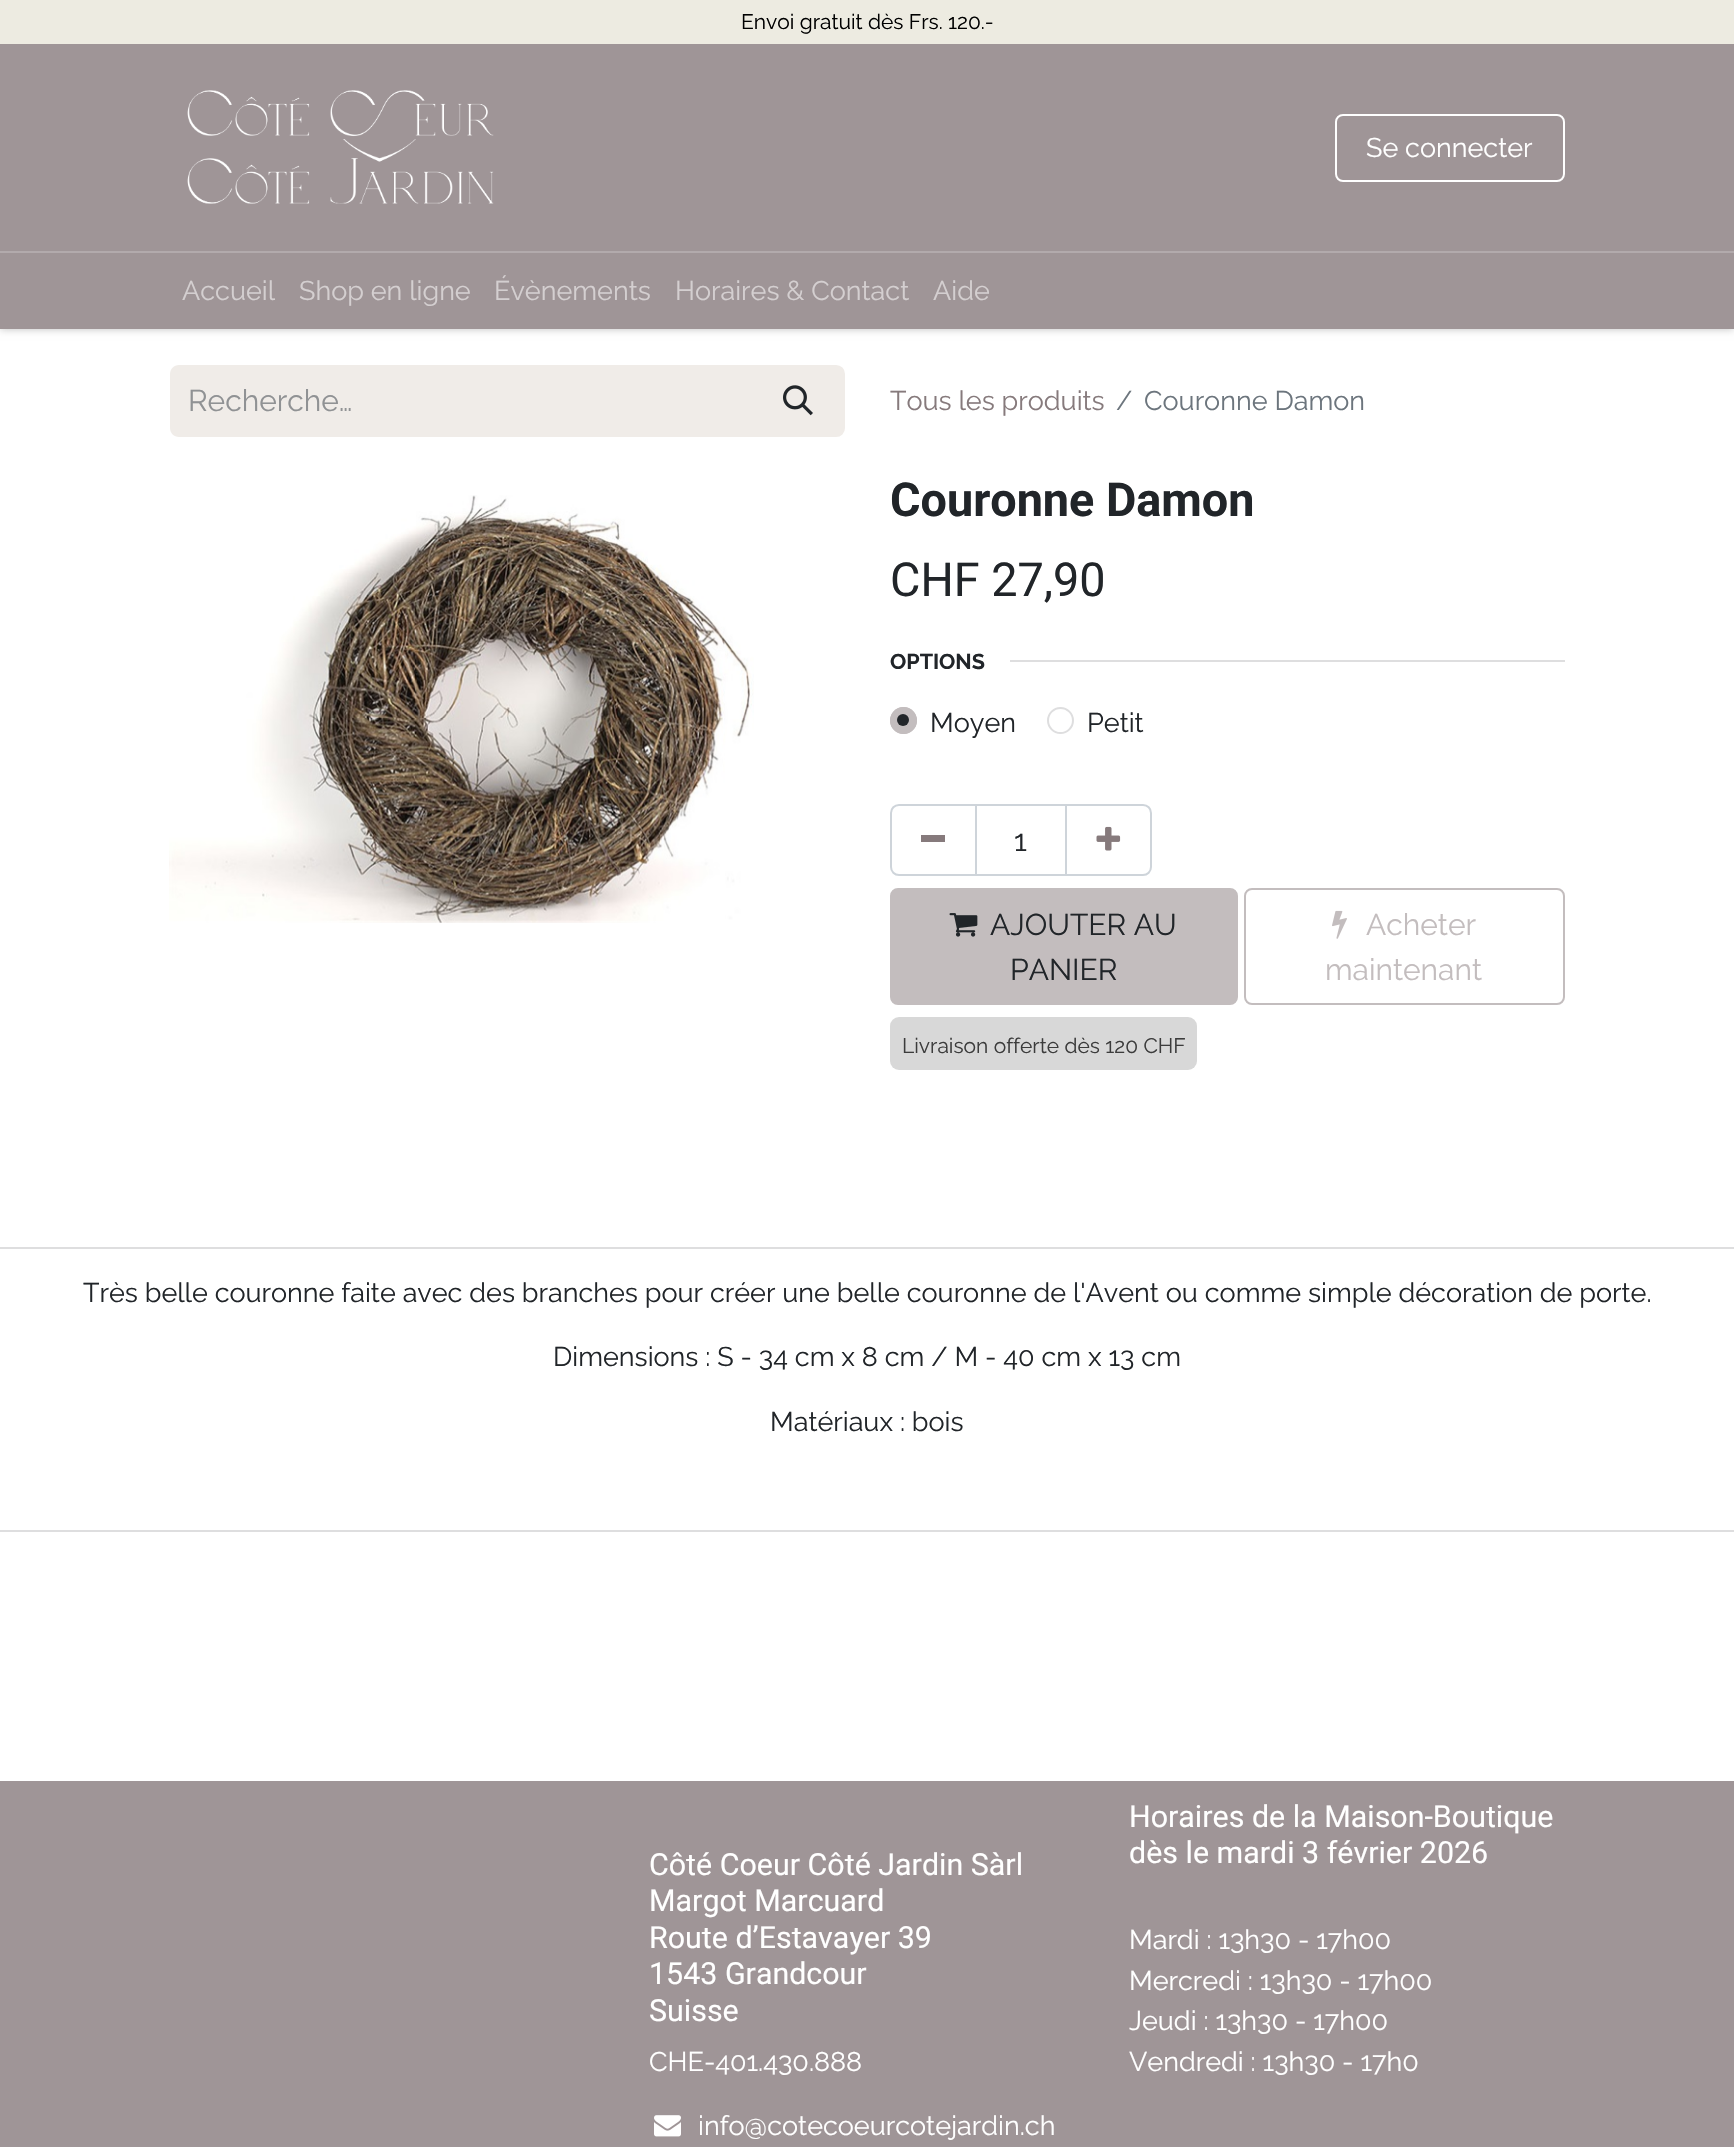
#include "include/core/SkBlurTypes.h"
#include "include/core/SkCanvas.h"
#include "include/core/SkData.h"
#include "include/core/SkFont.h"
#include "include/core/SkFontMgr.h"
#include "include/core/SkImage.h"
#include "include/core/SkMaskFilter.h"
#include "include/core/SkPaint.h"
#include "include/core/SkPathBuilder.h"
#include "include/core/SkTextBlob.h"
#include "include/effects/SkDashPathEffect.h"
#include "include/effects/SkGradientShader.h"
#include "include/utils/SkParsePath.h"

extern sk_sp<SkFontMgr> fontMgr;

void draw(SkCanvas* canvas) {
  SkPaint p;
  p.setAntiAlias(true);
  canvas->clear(SK_ColorWHITE);
  p.setColor(SkColorSetARGB(64, 0, 0, 0));
  p.setMaskFilter(SkMaskFilter::MakeBlur(kNormal_SkBlurStyle, 4));
  canvas->drawRect(SkRect::MakeLTRB(0, 0, 1734, 329), p);
  p.setMaskFilter(nullptr);
  p.setColor(SkColorSetRGB(159, 149, 151));
  canvas->drawRect(SkRect::MakeLTRB(0, 44, 1734, 329), p);
  p.setColor(SkColorSetRGB(237, 235, 225));
  canvas->drawRect(SkRect::MakeLTRB(0, 0, 1734, 44), p);
  canvas->drawImageRect(SkImages::DeferredFromEncodedData(SkData::MakeFromFileName("images/1.png")), SkRect::MakeLTRB(187, 90, 494, 204), SkSamplingOptions());
  p.setStyle(SkPaint::kStroke_Style);
  p.setStrokeWidth(2);
  p.setColor(SK_ColorWHITE);
  canvas->drawRoundRect(SkRect::MakeLTRB(1336, 115, 1564, 181), 7, 7, p);
  p.setStyle(SkPaint::kFill_Style);
  p.setColor(SkColorSetRGB(178, 170, 172));
  canvas->drawRect(SkRect::MakeLTRB(0, 251, 1734, 253), p);
  p.setColor(SkColorSetRGB(240, 236, 232));
  canvas->drawPath(SkPathBuilder().moveTo(179, 365).lineTo(753, 365).lineTo(753, 437).lineTo(179, 437).cubicTo(174, 437, 170, 433, 170, 428).lineTo(170, 374).cubicTo(170, 369, 174, 365, 179, 365).close().detach(), p);
  canvas->drawPath(SkPathBuilder().moveTo(753, 366).lineTo(836, 366).cubicTo(840.5f, 366, 844, 369.5f, 844, 374).lineTo(844, 428).cubicTo(844, 432.5f, 840.5f, 436, 836, 436).lineTo(753, 436).close().detach(), p);
  p.setStyle(SkPaint::kStroke_Style);
  canvas->drawPath(SkPathBuilder().moveTo(753, 366).lineTo(836, 366).cubicTo(840.5f, 366, 844, 369.5f, 844, 374).lineTo(844, 428).cubicTo(844, 432.5f, 840.5f, 436, 836, 436).lineTo(753, 436).close().detach(), p);
  canvas->drawImageRect(SkImages::DeferredFromEncodedData(SkData::MakeFromFileName("images/2.png")), SkRect::MakeLTRB(783, 385, 813, 416), SkSamplingOptions());
  canvas->drawImageRect(SkImages::DeferredFromEncodedData(SkData::MakeFromFileName("images/3.png")), SkRect::MakeLTRB(169, 495, 754, 923), SkSamplingOptions());
  p.setStyle(SkPaint::kFill_Style);
  p.setColor(SkColorSetRGB(222, 222, 223));
  canvas->drawRect(SkRect::MakeLTRB(1010, 660, 1565, 662), p);
  p.setColor(SkColorSetRGB(195, 189, 190));
  canvas->drawCircle(903.5f, 720.5f, 13.5f, p);
  p.setColor(SkColorSetRGB(33, 37, 41));
  canvas->drawCircle(903, 720, 6, p);
  p.setStyle(SkPaint::kStroke_Style);
  p.setColor(SkColorSetRGB(195, 189, 190));
  canvas->drawCircle(903.5f, 720.5f, 12.5f, p);
  p.setColor(SkColorSetRGB(222, 222, 223));
  canvas->drawCircle(1060.5f, 720.5f, 12.5f, p);
  p.setColor(SkColorSetRGB(206, 212, 218));
  canvas->drawRect(SkRect::MakeLTRB(976, 805, 1066, 875), p);
  canvas->drawPath(SkPathBuilder().moveTo(899, 805).lineTo(976, 805).lineTo(976, 875).lineTo(899, 875).cubicTo(894.5f, 875, 891, 871.5f, 891, 867).lineTo(891, 813).cubicTo(891, 808.5f, 894.5f, 805, 899, 805).close().detach(), p);
  p.setStyle(SkPaint::kFill_Style);
  p.setColor(SkColorSetRGB(134, 122, 124));
  canvas->drawRect(SkRect::MakeLTRB(921, 835, 945, 842), p);
  p.setStyle(SkPaint::kStroke_Style);
  p.setColor(SkColorSetRGB(206, 212, 218));
  canvas->drawPath(SkPathBuilder().moveTo(1066, 805).lineTo(1143, 805).cubicTo(1147.5f, 805, 1151, 808.5f, 1151, 813).lineTo(1151, 867).cubicTo(1151, 871.5f, 1147.5f, 875, 1143, 875).lineTo(1066, 875).close().detach(), p);
  canvas->drawImageRect(SkImages::DeferredFromEncodedData(SkData::MakeFromFileName("images/4.png")), SkRect::MakeLTRB(1096, 826, 1121, 851), SkSamplingOptions());
  p.setStyle(SkPaint::kFill_Style);
  p.setColor(SkColorSetRGB(195, 189, 190));
  canvas->drawRoundRect(SkRect::MakeLTRB(891, 889, 1237, 1004), 7, 7, p);
  p.setStyle(SkPaint::kStroke_Style);
  canvas->drawRoundRect(SkRect::MakeLTRB(891, 889, 1237, 1004), 7, 7, p);
  canvas->drawImageRect(SkImages::DeferredFromEncodedData(SkData::MakeFromFileName("images/5.png")), SkRect::MakeLTRB(949, 913, 978, 937), SkSamplingOptions());
  canvas->drawRoundRect(SkRect::MakeLTRB(1245, 889, 1564, 1004), 7, 7, p);
  canvas->drawImageRect(SkImages::DeferredFromEncodedData(SkData::MakeFromFileName("images/6.png")), SkRect::MakeLTRB(1332, 910, 1347, 939), SkSamplingOptions());
  p.setStyle(SkPaint::kFill_Style);
  p.setColor(SkColorSetRGB(222, 222, 223));
  canvas->drawRect(SkRect::MakeLTRB(0, 1247, 1734, 1249), p);
  canvas->drawRect(SkRect::MakeLTRB(0, 1530, 1734, 1532), p);
  p.setColor(SkColorSetRGB(159, 149, 151));
  canvas->drawRect(SkRect::MakeLTRB(0, 1781, 1734, 2147), p);
  canvas->drawImageRect(SkImages::DeferredFromEncodedData(SkData::MakeFromFileName("images/7.png")), SkRect::MakeLTRB(654, 2115, 681, 2137), SkSamplingOptions());
  SkFont font1(fontMgr->matchFamilyStyle("Raleway", SkFontStyle::Normal()), 21);
  font1.setSubpixel(true);
  p.setColor(SK_ColorBLACK);
  canvas->drawString("Envoi gratuit dès Frs. 120.-", 741, 29, font1, p);
  SkFont font2(fontMgr->matchFamilyStyle("Raleway", SkFontStyle::Normal()), 27);
  font2.setSubpixel(true);
  p.setColor(SK_ColorWHITE);
  canvas->drawString("Se connecter", 1366, 157, font2, p);
  p.setColor(SkColorSetRGB(212, 207, 208));
  canvas->drawString("Accueil", 182, 300, font2, p);
  canvas->drawString("Shop en ligne", 299, 300, font2, p);
  canvas->drawString("Évènements", 494, 300, font2, p);
  canvas->drawString("Horaires & Contact", 675, 300, font2, p);
  canvas->drawString("Aide", 933, 300, font2, p);
  SkFont font3(fontMgr->matchFamilyStyle("Raleway", SkFontStyle::Normal()), 30);
  font3.setSubpixel(true);
  p.setColor(SkColorSetRGB(144, 146, 148));
  canvas->drawString("Recherche…", 188, 411, font3, p);
  p.setColor(SkColorSetRGB(134, 122, 124));
  canvas->drawString("Tous les produits", 890, 410, font2, p);
  p.setColor(SkColorSetRGB(108, 117, 125));
  canvas->drawString("/", 1116, 410, font2, p);
  canvas->drawString("Couronne Damon", 1144, 410, font2, p);
  SkFont font4(fontMgr->matchFamilyStyle("Roboto", SkFontStyle::Bold()), 46.75f);
  font4.setSubpixel(true);
  p.setColor(SkColorSetRGB(33, 37, 41));
  canvas->drawString("Couronne Damon", 890, 516, font4, p);
  SkFont font5(fontMgr->matchFamilyStyle("Roboto", SkFontStyle::Normal()), 46.75f);
  font5.setSubpixel(true);
  canvas->drawString("CHF 27,90", 890, 596, font5, p);
  SkFont font6(fontMgr->matchFamilyStyle("Raleway", SkFontStyle::Bold()), 21.5f);
  font6.setSubpixel(true);
  canvas->drawString("OPTIONS", 890, 669, font6, p);
  canvas->drawString("Moyen", 930, 732, font2, p);
  canvas->drawString("Petit", 1087, 732, font2, p);
  canvas->drawString("1", 1014, 851, font3, p);
  canvas->drawString("AJOUTER AU", 990, 935, font3, p);
  canvas->drawString("PANIER", 1010, 980, font3, p);
  p.setColor(SkColorSetRGB(195, 189, 190));
  canvas->drawString("Acheter", 1366, 935, font3, p);
  canvas->drawString("maintenant", 1325, 980, font3, p);
  p.setColor(SkColorSetRGB(60, 60, 60));
  canvas->drawString("Livraison offerte dès 120 CHF", 902, 1053, font1, p);
  p.setColor(SkColorSetARGB(51, 60, 60, 60));
  canvas->drawRoundRect(SkRect::MakeLTRB(890, 1017, 1197, 1070), 9, 9, p);
  p.setColor(SkColorSetRGB(33, 37, 41));
  canvas->drawString("Très belle couronne faite avec des branches pour créer une belle couronne de l'Avent ou comme simple décoration de porte.", 83, 1302, font2, p);
  canvas->drawString("Dimensions : S - 34 cm x 8 cm / M - 40 cm x 13 cm", 553, 1366, font2, p);
  canvas->drawString("Matériaux : bois", 770, 1431, font2, p);
  SkFont font7(fontMgr->matchFamilyStyle("Roboto", SkFontStyle::Normal()), 30.4f);
  font7.setSubpixel(true);
  p.setColor(SK_ColorWHITE);
  canvas->drawString("Côté Coeur Côté Jardin Sàrl", 649, 1875, font7, p);
  canvas->drawString("Margot Marcuard", 649, 1911, font7, p);
  canvas->drawString("Route d’Estavayer 39", 649, 1948, font7, p);
  canvas->drawString("1543 Grandcour", 649, 1984, font7, p);
  canvas->drawString("Suisse", 649, 2021, font7, p);
  canvas->drawString("CHE-401.430.888", 649, 2071, font2, p);
  canvas->drawString("info@cotecoeurcotejardin.ch", 698, 2135, font2, p);
  canvas->drawString("Horaires de la Maison-Boutique", 1129, 1827, font7, p);
  canvas->drawString("dès le mardi 3 février 2026", 1129, 1863, font7, p);
  canvas->drawString("Mardi : 13h30 - 17h00", 1129, 1949, font2, p);
  canvas->drawString("Mercredi : 13h30 - 17h00", 1129, 1990, font2, p);
  canvas->drawString("Jeudi : 13h30 - 17h00", 1129, 2030, font2, p);
  canvas->drawString("Vendredi : 13h30 - 17h0", 1129, 2071, font2, p);
}
